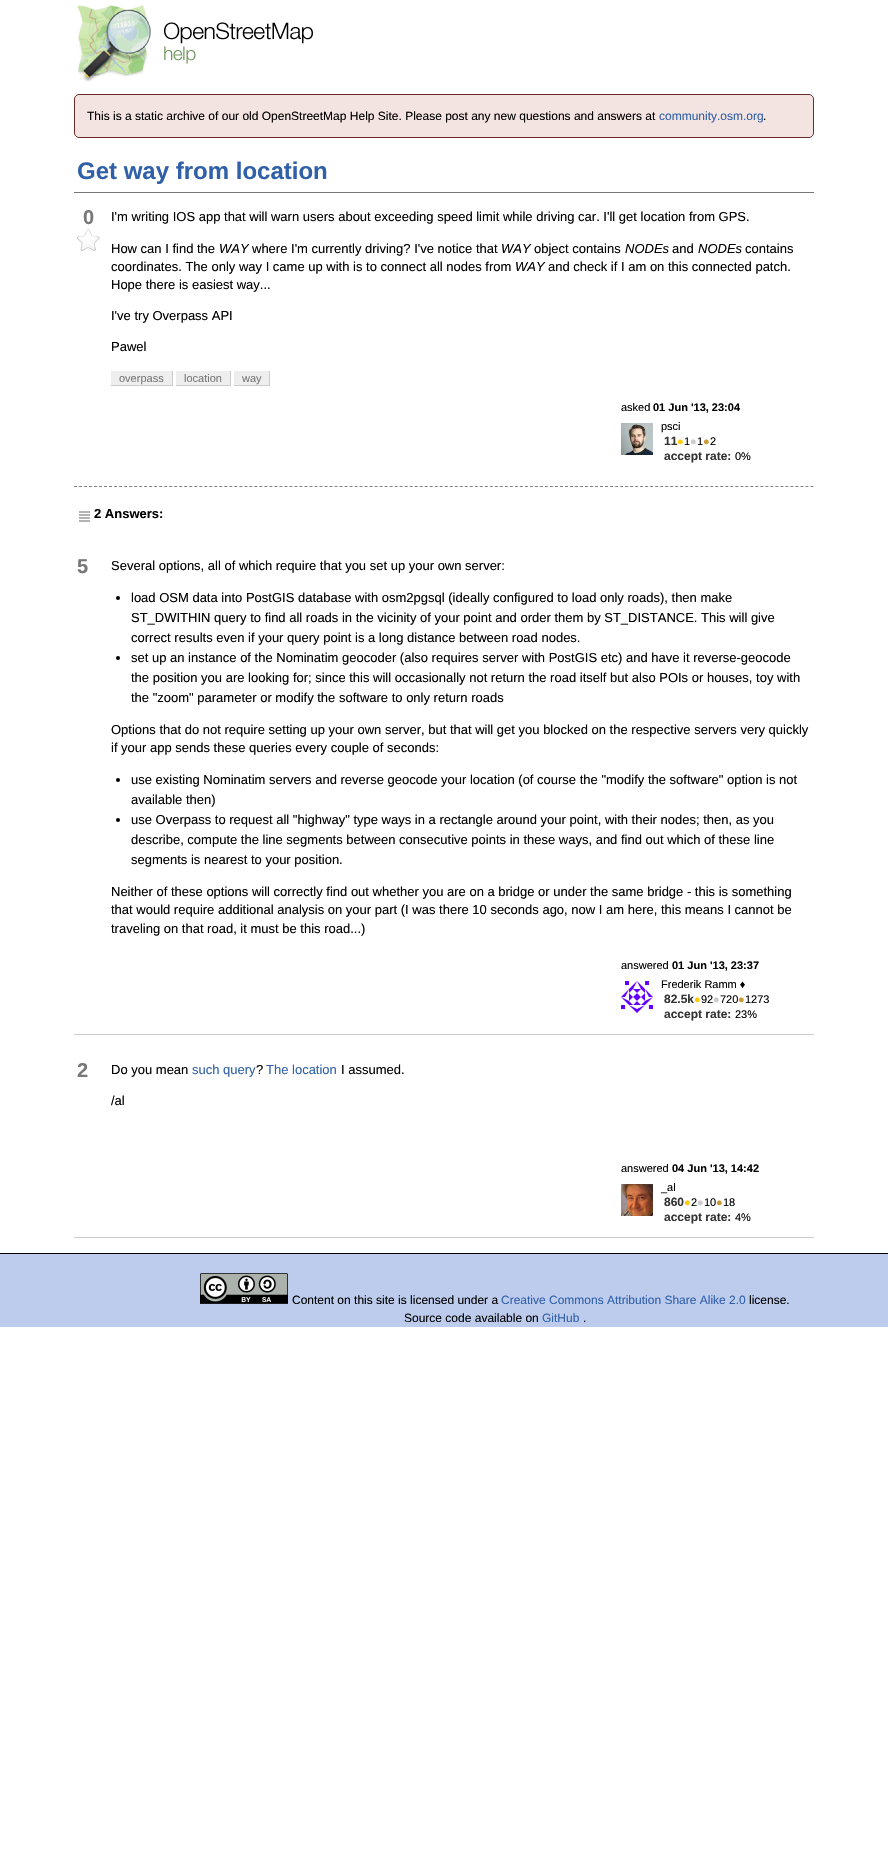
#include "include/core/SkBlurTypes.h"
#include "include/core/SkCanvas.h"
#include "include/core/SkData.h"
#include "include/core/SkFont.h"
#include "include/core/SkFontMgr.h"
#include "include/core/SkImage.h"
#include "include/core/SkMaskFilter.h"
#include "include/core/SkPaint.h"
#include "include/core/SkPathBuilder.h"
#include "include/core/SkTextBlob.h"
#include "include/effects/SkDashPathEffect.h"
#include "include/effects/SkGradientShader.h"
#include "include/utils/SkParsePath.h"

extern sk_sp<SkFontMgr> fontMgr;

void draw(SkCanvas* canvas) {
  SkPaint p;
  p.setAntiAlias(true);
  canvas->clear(SK_ColorWHITE);
  canvas->drawImageRect(SkImages::DeferredFromEncodedData(SkData::MakeFromFileName("images/1.png")), SkRect::MakeLTRB(77, 5, 313, 82), SkSamplingOptions());
  p.setColor(SkColorSetRGB(243, 227, 225));
  canvas->drawRoundRect(SkRect::MakeLTRB(74.5f, 94.5f, 813.5f, 137.5f), 4.5f, 4.5f, p);
  p.setStyle(SkPaint::kStroke_Style);
  p.setStrokeWidth(1);
  p.setColor(SkColorSetRGB(107, 43, 40));
  canvas->drawRoundRect(SkRect::MakeLTRB(74.5f, 94.5f, 813.5f, 137.5f), 4.5f, 4.5f, p);
  p.setStyle(SkPaint::kFill_Style);
  p.setColor(SkColorSetRGB(119, 119, 119));
  canvas->drawRect(SkRect::MakeLTRB(74, 192, 814, 193), p);
  canvas->drawImageRect(SkImages::DeferredFromEncodedData(SkData::MakeFromFileName("images/2.png")), SkRect::MakeLTRB(77, 229, 100, 251), SkSamplingOptions());
  p.setColor(SkColorSetRGB(238, 238, 238));
  canvas->drawRect(SkRect::MakeLTRB(111, 371, 172, 385), p);
  p.setColor(SkColorSetRGB(204, 204, 204));
  canvas->drawRect(SkRect::MakeLTRB(172, 371, 173, 386), p);
  canvas->drawRect(SkRect::MakeLTRB(111, 385, 173, 386), p);
  p.setColor(SkColorSetRGB(238, 238, 238));
  canvas->drawRect(SkRect::MakeLTRB(176, 371, 230, 385), p);
  p.setColor(SkColorSetRGB(204, 204, 204));
  canvas->drawRect(SkRect::MakeLTRB(230, 371, 231, 386), p);
  canvas->drawRect(SkRect::MakeLTRB(176, 385, 231, 386), p);
  p.setColor(SkColorSetRGB(238, 238, 238));
  canvas->drawRect(SkRect::MakeLTRB(234, 371, 269, 385), p);
  p.setColor(SkColorSetRGB(204, 204, 204));
  canvas->drawRect(SkRect::MakeLTRB(269, 371, 270, 386), p);
  canvas->drawRect(SkRect::MakeLTRB(234, 385, 270, 386), p);
  canvas->drawImageRect(SkImages::DeferredFromEncodedData(SkData::MakeFromFileName("images/3.png")), SkRect::MakeLTRB(621, 423, 653, 455), SkSamplingOptions());
  p.setStyle(SkPaint::kStroke_Style);
  p.setColor(SkColorSetRGB(128, 128, 128));
  p.setPathEffect(SkDashPathEffect::Make({{3, 2.01f}}, 0));
  canvas->drawPath(SkPathBuilder().moveTo(74, 486.5f).lineTo(814, 486.5f).detach(), p);
  p.setPathEffect(nullptr);
  canvas->drawImageRect(SkImages::DeferredFromEncodedData(SkData::MakeFromFileName("images/4.png")), SkRect::MakeLTRB(79, 511, 90, 522), SkSamplingOptions());
  p.setStyle(SkPaint::kFill_Style);
  p.setColor(SkColorSetRGB(204, 204, 206));
  canvas->drawRect(SkRect::MakeLTRB(74, 1034, 814, 1035), p);
  p.setColor(SK_ColorBLACK);
  canvas->drawCircle(118, 598, 2, p);
  canvas->drawCircle(118, 658, 2, p);
  canvas->drawCircle(118, 780, 2, p);
  canvas->drawCircle(118, 820, 2, p);
  canvas->drawImageRect(SkImages::DeferredFromEncodedData(SkData::MakeFromFileName("images/5.png")), SkRect::MakeLTRB(621, 981, 653, 1013), SkSamplingOptions());
  p.setColor(SkColorSetRGB(204, 204, 206));
  canvas->drawRect(SkRect::MakeLTRB(74, 1237, 814, 1238), p);
  canvas->drawImageRect(SkImages::DeferredFromEncodedData(SkData::MakeFromFileName("images/6.png")), SkRect::MakeLTRB(621, 1184, 653, 1216), SkSamplingOptions());
  p.setColor(SkColorSetRGB(189, 204, 237));
  canvas->drawRect(SkRect::MakeLTRB(0, 1254, 888, 1327), p);
  p.setColor(SK_ColorBLACK);
  canvas->drawRect(SkRect::MakeLTRB(0, 1253, 888, 1254), p);
  canvas->drawImageRect(SkImages::DeferredFromEncodedData(SkData::MakeFromFileName("images/7.png")), SkRect::MakeLTRB(200, 1273, 288, 1304), SkSamplingOptions());
  SkFont font1(fontMgr->matchFamilyStyle("Liberation Sans", SkFontStyle::Normal()), 12);
  font1.setSubpixel(true);
  canvas->drawString("This is a static archive of our old OpenStreetMap Help Site. Please post any new questions and answers at", 87, 120, font1, p);
  p.setColor(SkColorSetRGB(48, 96, 168));
  canvas->drawString("community.osm.org", 659, 120, font1, p);
  p.setColor(SK_ColorBLACK);
  canvas->drawString(".", 763, 120, font1, p);
  SkFont font2(fontMgr->matchFamilyStyle("Liberation Sans", SkFontStyle::Bold()), 24);
  font2.setSubpixel(true);
  p.setColor(SkColorSetRGB(48, 96, 168));
  canvas->drawString("Get way from location", 77, 179, font2, p);
  SkFont font3(fontMgr->matchFamilyStyle("Liberation Sans", SkFontStyle::Bold()), 20);
  font3.setSubpixel(true);
  p.setColor(SkColorSetRGB(119, 119, 119));
  canvas->drawString("0", 83, 224, font3, p);
  SkFont font4(fontMgr->matchFamilyStyle("Liberation Sans", SkFontStyle::Normal()), 13);
  font4.setSubpixel(true);
  p.setColor(SK_ColorBLACK);
  canvas->drawString("I'm writing IOS app that will warn users about exceeding speed limit while driving car. I'll get location from GPS.", 111, 221, font4, p);
  canvas->drawString("How can I find the", 111, 253, font4, p);
  SkFont font5(fontMgr->matchFamilyStyle("Liberation Sans", SkFontStyle::Italic()), 13);
  font5.setSubpixel(true);
  canvas->drawString("WAY", 219, 253, font5, p);
  canvas->drawString("where I'm currently driving? I've notice that", 252, 253, font4, p);
  canvas->drawString("WAY", 501, 253, font5, p);
  canvas->drawString("object contains", 534, 253, font4, p);
  canvas->drawString("NODEs", 625, 253, font5, p);
  canvas->drawString("and", 672, 253, font4, p);
  canvas->drawString("NODEs", 698, 253, font5, p);
  canvas->drawString("contains", 745, 253, font4, p);
  canvas->drawString("coordinates. The only way I came up with is to connect all nodes from", 111, 271, font4, p);
  canvas->drawString("WAY", 515, 271, font5, p);
  canvas->drawString("and check if I am on this connected patch.", 548, 271, font4, p);
  canvas->drawString("Hope there is easiest way...", 111, 289, font4, p);
  canvas->drawString("I've try Overpass API", 111, 320, font4, p);
  canvas->drawString("Pawel", 111, 351, font4, p);
  SkFont font6(fontMgr->matchFamilyStyle("Liberation Sans", SkFontStyle::Normal()), 11);
  font6.setSubpixel(true);
  p.setColor(SkColorSetRGB(119, 119, 119));
  canvas->drawString("overpass", 119, 382, font6, p);
  canvas->drawString("location", 184, 382, font6, p);
  canvas->drawString("way", 242, 382, font6, p);
  p.setColor(SK_ColorBLACK);
  canvas->drawString("asked", 621, 411, font6, p);
  SkFont font7(fontMgr->matchFamilyStyle("Liberation Sans", SkFontStyle::Bold()), 11);
  font7.setSubpixel(true);
  canvas->drawString("01 Jun '13, 23:04", 653, 411, font7, p);
  canvas->drawString("psci", 661, 430, font6, p);
  SkFont font8(fontMgr->matchFamilyStyle("Liberation Sans", SkFontStyle::Bold()), 12);
  font8.setSubpixel(true);
  p.setColor(SkColorSetRGB(51, 51, 51));
  canvas->drawString("11", 664, 445, font8, p);
  p.setColor(SkColorSetRGB(255, 204, 0));
  canvas->drawString("●", 677, 445, font6, p);
  p.setColor(SK_ColorBLACK);
  canvas->drawString("1", 684, 445, font6, p);
  p.setColor(SkColorSetRGB(204, 204, 204));
  canvas->drawString("●", 690, 445, font6, p);
  p.setColor(SK_ColorBLACK);
  canvas->drawString("1", 697, 445, font6, p);
  p.setColor(SkColorSetRGB(204, 153, 51));
  canvas->drawString("●", 703, 445, font6, p);
  p.setColor(SK_ColorBLACK);
  canvas->drawString("2", 710, 445, font6, p);
  p.setColor(SkColorSetRGB(51, 51, 51));
  canvas->drawString("accept rate:", 664, 460, font8, p);
  p.setColor(SK_ColorBLACK);
  canvas->drawString("0%", 735, 460, font6, p);
  SkFont font9(fontMgr->matchFamilyStyle("Liberation Sans", SkFontStyle::Bold()), 13);
  font9.setSubpixel(true);
  canvas->drawString("2 Answers:", 94, 518, font9, p);
  p.setColor(SkColorSetRGB(119, 119, 119));
  canvas->drawString("5", 77, 573, font3, p);
  p.setColor(SK_ColorBLACK);
  canvas->drawString("Several options, all of which require that you set up your own server:", 111, 570, font4, p);
  canvas->drawString("load OSM data into PostGIS database with osm2pgsql (ideally configured to load only roads), then make", 131, 602, font4, p);
  canvas->drawString("ST_DWITHIN query to find all roads in the vicinity of your point and order them by ST_DISTANCE. This will give", 131, 622, font4, p);
  canvas->drawString("correct results even if your query point is a long distance between road nodes.", 131, 642, font4, p);
  canvas->drawString("set up an instance of the Nominatim geocoder (also requires server with PostGIS etc) and have it reverse-geocode", 131, 662, font4, p);
  canvas->drawString("the position you are looking for; since this will occasionally not return the road itself but also POIs or houses, toy with", 131, 682, font4, p);
  canvas->drawString("the \"zoom\" parameter or modify the software to only return roads", 131, 702, font4, p);
  canvas->drawString("Options that do not require setting up your own server, but that will get you blocked on the respective servers very quickly", 111, 734, font4, p);
  canvas->drawString("if your app sends these queries every couple of seconds:", 111, 752, font4, p);
  canvas->drawString("use existing Nominatim servers and reverse geocode your location (of course the \"modify the software\" option is not", 131, 784, font4, p);
  canvas->drawString("available then)", 131, 804, font4, p);
  canvas->drawString("use Overpass to request all \"highway\" type ways in a rectangle around your point, with their nodes; then, as you", 131, 824, font4, p);
  canvas->drawString("describe, compute the line segments between consecutive points in these ways, and find out which of these line", 131, 844, font4, p);
  canvas->drawString("segments is nearest to your position.", 131, 864, font4, p);
  canvas->drawString("Neither of these options will correctly find out whether you are on a bridge or under the same bridge - this is something", 111, 896, font4, p);
  canvas->drawString("that would require additional analysis on your part (I was there 10 seconds ago, now I am here, this means I cannot be", 111, 914, font4, p);
  canvas->drawString("traveling on that road, it must be this road...)", 111, 933, font4, p);
  canvas->drawString("answered", 621, 969, font6, p);
  canvas->drawString("01 Jun '13, 23:37", 672, 969, font7, p);
  canvas->drawString("Frederik Ramm ♦", 661, 988, font6, p);
  p.setColor(SkColorSetRGB(51, 51, 51));
  canvas->drawString("82.5k", 664, 1003, font8, p);
  p.setColor(SkColorSetRGB(255, 204, 0));
  canvas->drawString("●", 694, 1003, font6, p);
  p.setColor(SK_ColorBLACK);
  canvas->drawString("92", 701, 1003, font6, p);
  p.setColor(SkColorSetRGB(204, 204, 204));
  canvas->drawString("●", 713, 1003, font6, p);
  p.setColor(SK_ColorBLACK);
  canvas->drawString("720", 720, 1003, font6, p);
  p.setColor(SkColorSetRGB(204, 153, 51));
  canvas->drawString("●", 738, 1003, font6, p);
  p.setColor(SK_ColorBLACK);
  canvas->drawString("1273", 745, 1003, font6, p);
  p.setColor(SkColorSetRGB(51, 51, 51));
  canvas->drawString("accept rate:", 664, 1018, font8, p);
  p.setColor(SK_ColorBLACK);
  canvas->drawString("23%", 735, 1018, font6, p);
  p.setColor(SkColorSetRGB(119, 119, 119));
  canvas->drawString("2", 77, 1077, font3, p);
  p.setColor(SK_ColorBLACK);
  canvas->drawString("Do you mean", 111, 1074, font4, p);
  p.setColor(SkColorSetRGB(48, 96, 168));
  canvas->drawString("such query", 192, 1074, font4, p);
  p.setColor(SK_ColorBLACK);
  canvas->drawString("?", 256, 1074, font4, p);
  p.setColor(SkColorSetRGB(48, 96, 168));
  canvas->drawString("The location", 266, 1074, font4, p);
  p.setColor(SK_ColorBLACK);
  canvas->drawString("I assumed.", 341, 1074, font4, p);
  canvas->drawString("/al", 111, 1105, font4, p);
  canvas->drawString("answered", 621, 1172, font6, p);
  canvas->drawString("04 Jun '13, 14:42", 672, 1172, font7, p);
  canvas->drawString("_al", 661, 1191, font6, p);
  p.setColor(SkColorSetRGB(51, 51, 51));
  canvas->drawString("860", 664, 1206, font8, p);
  p.setColor(SkColorSetRGB(255, 204, 0));
  canvas->drawString("●", 684, 1206, font6, p);
  p.setColor(SK_ColorBLACK);
  canvas->drawString("2", 691, 1206, font6, p);
  p.setColor(SkColorSetRGB(204, 204, 204));
  canvas->drawString("●", 697, 1206, font6, p);
  p.setColor(SK_ColorBLACK);
  canvas->drawString("10", 704, 1206, font6, p);
  p.setColor(SkColorSetRGB(204, 153, 51));
  canvas->drawString("●", 716, 1206, font6, p);
  p.setColor(SK_ColorBLACK);
  canvas->drawString("18", 723, 1206, font6, p);
  p.setColor(SkColorSetRGB(51, 51, 51));
  canvas->drawString("accept rate:", 664, 1221, font8, p);
  p.setColor(SK_ColorBLACK);
  canvas->drawString("4%", 735, 1221, font6, p);
  canvas->drawString("Content on this site is licensed under a", 292, 1304, font1, p);
  p.setColor(SkColorSetRGB(48, 96, 168));
  canvas->drawString("Creative Commons Attribution Share Alike 2.0", 501, 1304, font1, p);
  p.setColor(SK_ColorBLACK);
  canvas->drawString("license.", 749, 1304, font1, p);
  canvas->drawString("Source code available on", 404, 1322, font1, p);
  p.setColor(SkColorSetRGB(48, 96, 168));
  canvas->drawString("GitHub", 542, 1322, font1, p);
  p.setColor(SK_ColorBLACK);
  canvas->drawString(".", 583, 1322, font1, p);
}
